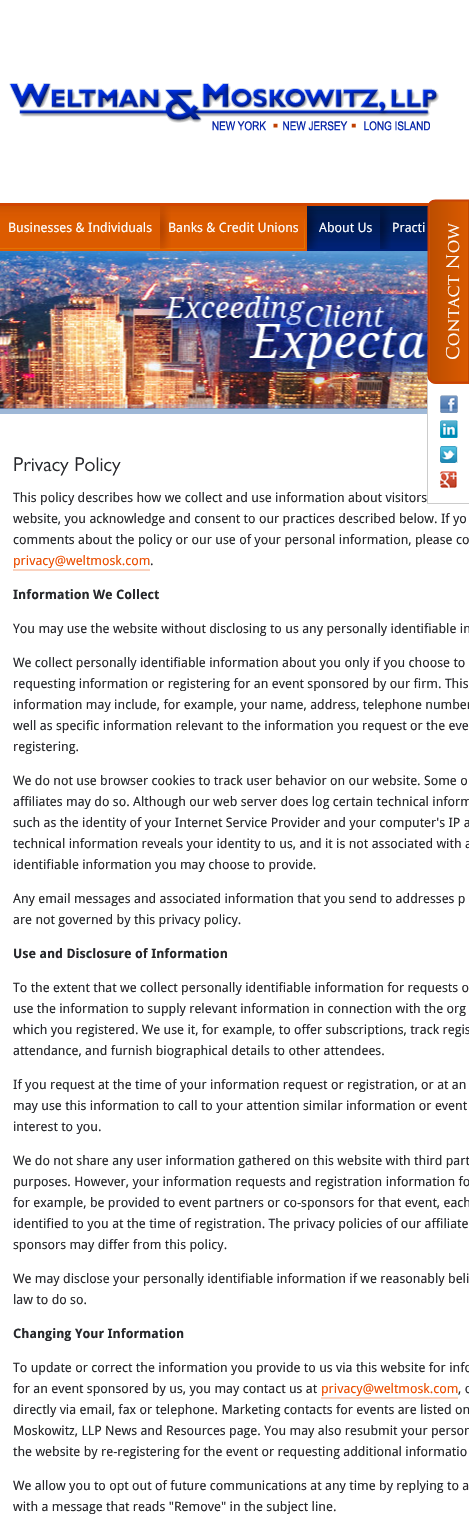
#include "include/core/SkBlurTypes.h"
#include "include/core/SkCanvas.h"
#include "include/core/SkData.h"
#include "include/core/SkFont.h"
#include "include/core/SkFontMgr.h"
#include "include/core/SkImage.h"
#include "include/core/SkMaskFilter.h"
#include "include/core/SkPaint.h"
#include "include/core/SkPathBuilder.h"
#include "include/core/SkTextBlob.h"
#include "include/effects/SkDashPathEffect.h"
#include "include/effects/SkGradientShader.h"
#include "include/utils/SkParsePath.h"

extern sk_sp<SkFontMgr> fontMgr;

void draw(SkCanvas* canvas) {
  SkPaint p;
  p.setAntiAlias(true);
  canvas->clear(SK_ColorWHITE);
  canvas->drawImageRect(SkImages::DeferredFromEncodedData(SkData::MakeFromFileName("images/1.png")), SkRect::MakeLTRB(307, 206, 428, 251), SkSamplingOptions());
  canvas->drawImageRect(SkImages::DeferredFromEncodedData(SkData::MakeFromFileName("images/2.png")), SkRect::MakeLTRB(0, 206, 307, 251), SkSamplingOptions());
  p.setColor(SkColorSetRGB(209, 69, 1));
  canvas->drawRect(SkRect::MakeLTRB(0, 203, 429, 206), p);
  canvas->drawImageRect(SkImages::DeferredFromEncodedData(SkData::MakeFromFileName("images/3.png")), SkRect::MakeLTRB(160, 206, 171, 249), SkSamplingOptions());
  canvas->drawImageRect(SkImages::DeferredFromEncodedData(SkData::MakeFromFileName("images/4.png")), SkRect::MakeLTRB(302, 219, 307, 251), SkSamplingOptions());
  canvas->drawImageRect(SkImages::DeferredFromEncodedData(SkData::MakeFromFileName("images/5.png")), SkRect::MakeLTRB(307, 206, 318, 249), SkSamplingOptions());
  canvas->drawImageRect(SkImages::DeferredFromEncodedData(SkData::MakeFromFileName("images/5.png")), SkRect::MakeLTRB(380, 206, 391, 249), SkSamplingOptions());
  canvas->drawImageRect(SkImages::DeferredFromEncodedData(SkData::MakeFromFileName("images/6.png")), SkRect::MakeLTRB(9, 83, 439, 131), SkSamplingOptions());
  {
    const SkColor colors[] = {SkColorSetRGB(188, 78, 0), SkColorSetRGB(219, 90, 0)};
    const float stops[] = {0, 1};
    const SkPoint ends[] = {{391, 292}, {430, 292}};
    p.setShader(SkGradientShader::MakeLinear(ends, colors, stops, 2, SkTileMode::kClamp));
    p.setAlpha(255);
  }
  canvas->drawPath(SkPathBuilder().moveTo(428, 376).cubicTo(428, 378, 428, 380, 430, 381).lineTo(430, 202).cubicTo(428, 203, 428, 205, 428, 208).close().detach(), p);
  {
    const SkColor colors[] = {SkColorSetRGB(188, 78, 0), SkColorSetRGB(219, 90, 0)};
    const float stops[] = {0, 1};
    const SkPoint ends[] = {{430, 292}, {469, 292}};
    p.setShader(SkGradientShader::MakeLinear(ends, colors, stops, 2, SkTileMode::kClamp));
    p.setAlpha(255);
  }
  canvas->drawPath(SkPathBuilder().moveTo(468, 384).lineTo(436, 384).cubicTo(433, 384, 431, 383, 430, 381).lineTo(430, 202).lineTo(433, 200).lineTo(468, 200).close().detach(), p);
  {
    const SkColor colors[] = {SkColorSetRGB(188, 78, 0), SkColorSetRGB(219, 90, 0)};
    const float stops[] = {0, 1};
    const SkPoint ends[] = {{469, 292}, {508, 292}};
    p.setShader(SkGradientShader::MakeLinear(ends, colors, stops, 2, SkTileMode::kClamp));
    p.setAlpha(255);
  }
  canvas->drawRect(SkRect::MakeLTRB(468, 200, 469, 384), p);
  p.setShader(nullptr);
  p.setColor(SkColorSetRGB(204, 204, 204));
  canvas->drawRect(SkRect::MakeLTRB(427, 503, 469, 504), p);
  canvas->drawImageRect(SkImages::DeferredFromEncodedData(SkData::MakeFromFileName("images/11.png")), SkRect::MakeLTRB(0, 251, 428, 409), SkSamplingOptions());
  canvas->drawRect(SkRect::MakeLTRB(427, 378, 428, 504), p);
  p.setStyle(SkPaint::kStroke_Style);
  p.setStrokeWidth(2);
  p.setColor(SkColorSetRGB(200, 65, 6));
  canvas->drawPath(SkPathBuilder().moveTo(428.5f, 375.5f).lineTo(428.5f, 207.5f).cubicTo(428.5f, 203.5f, 431.5f, 200.5f, 435.5f, 200.5f).lineTo(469.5f, 200.5f).lineTo(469.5f, 382.5f).lineTo(435.5f, 382.5f).cubicTo(431.5f, 382.5f, 428.5f, 379.5f, 428.5f, 375.5f).close().detach(), p);
  canvas->drawImageRect(SkImages::DeferredFromEncodedData(SkData::MakeFromFileName("images/7.png")), SkRect::MakeLTRB(440, 395, 458, 413), SkSamplingOptions());
  canvas->drawImageRect(SkImages::DeferredFromEncodedData(SkData::MakeFromFileName("images/8.png")), SkRect::MakeLTRB(440, 420, 458, 438), SkSamplingOptions());
  canvas->drawImageRect(SkImages::DeferredFromEncodedData(SkData::MakeFromFileName("images/9.png")), SkRect::MakeLTRB(440, 446, 458, 463), SkSamplingOptions());
  canvas->drawImageRect(SkImages::DeferredFromEncodedData(SkData::MakeFromFileName("images/10.png")), SkRect::MakeLTRB(440, 471, 457, 488), SkSamplingOptions());
  p.setStyle(SkPaint::kFill_Style);
  p.setColor(SkColorSetRGB(158, 184, 215));
  canvas->drawRect(SkRect::MakeLTRB(0, 409, 427, 414), p);
  p.setColor(SkColorSetRGB(250, 210, 191));
  canvas->drawRect(SkRect::MakeLTRB(13, 569, 150, 571), p);
  canvas->drawRect(SkRect::MakeLTRB(321, 1397, 458, 1399), p);
  SkFont font1(fontMgr->matchFamilyStyle("Droid Sans", SkFontStyle::Normal()), 13);
  font1.setSubpixel(true);
  p.setColor(SK_ColorWHITE);
  canvas->drawString("Businesses & Individuals", 8, 232, font1, p);
  canvas->drawString("Banks & Credit Unions", 168, 232, font1, p);
  canvas->drawString("About Us", 319, 232, font1, p);
  canvas->drawString("Practi", 392, 232, font1, p);
  SkFont font2(fontMgr->matchFamilyStyle("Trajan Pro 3", SkFontStyle::Normal()), 17);
  font2.setSubpixel(true);
  canvas->save();
  canvas->rotate(-90, 459, 360);
  canvas->drawString("Contact Now", 459, 360, font2, p);
  canvas->restore();
  SkFont font3(fontMgr->matchFamilyStyle("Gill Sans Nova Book", SkFontStyle::Normal()), 20);
  font3.setSubpixel(true);
  p.setColor(SkColorSetRGB(39, 40, 44));
  canvas->drawString("Privacy Policy", 13, 471, font3, p);
  canvas->drawString("This policy describes how we collect and use information about visitors", 13, 502, font1, p);
  canvas->drawString("website, you acknowledge and consent to our practices described below. If yo", 13, 523, font1, p);
  canvas->drawString("comments about the policy or our use of your personal information, please co", 13, 544, font1, p);
  p.setColor(SkColorSetRGB(235, 77, 0));
  canvas->drawString("privacy@weltmosk.com", 13, 565, font1, p);
  p.setColor(SkColorSetRGB(39, 40, 44));
  canvas->drawString(".", 150, 565, font1, p);
  SkFont font4(fontMgr->matchFamilyStyle("Droid Sans", SkFontStyle::Bold()), 13);
  font4.setSubpixel(true);
  canvas->drawString("Information We Collect", 13, 599, font4, p);
  canvas->drawString("You may use the website without disclosing to us any personally identifiable in", 13, 633, font1, p);
  canvas->drawString("We collect personally identifiable information about you only if you choose to", 13, 667, font1, p);
  canvas->drawString("requesting information or registering for an event sponsored by our firm. This", 13, 688, font1, p);
  canvas->drawString("information may include, for example, your name, address, telephone number", 13, 709, font1, p);
  canvas->drawString("well as specific information relevant to the information you request or the eve", 13, 730, font1, p);
  canvas->drawString("registering.", 13, 751, font1, p);
  canvas->drawString("We do not use browser cookies to track user behavior on our website. Some o", 13, 785, font1, p);
  canvas->drawString("affiliates may do so. Although our web server does log certain technical inform", 13, 806, font1, p);
  canvas->drawString("such as the identity of your Internet Service Provider and your computer's IP a", 13, 827, font1, p);
  canvas->drawString("technical information reveals your identity to us, and it is not associated with a", 13, 848, font1, p);
  canvas->drawString("identifiable information you may choose to provide.", 13, 869, font1, p);
  canvas->drawString("Any email messages and associated information that you send to addresses p", 13, 903, font1, p);
  canvas->drawString("are not governed by this privacy policy.", 13, 924, font1, p);
  canvas->drawString("Use and Disclosure of Information", 13, 958, font4, p);
  canvas->drawString("To the extent that we collect personally identifiable information for requests o", 13, 992, font1, p);
  canvas->drawString("use the information to supply relevant information in connection with the org", 13, 1013, font1, p);
  canvas->drawString("which you registered. We use it, for example, to offer subscriptions, track regis", 13, 1034, font1, p);
  canvas->drawString("attendance, and furnish biographical details to other attendees.", 13, 1055, font1, p);
  canvas->drawString("If you request at the time of your information request or registration, or at an", 13, 1089, font1, p);
  canvas->drawString("may use this information to call to your attention similar information or event", 13, 1110, font1, p);
  canvas->drawString("interest to you.", 13, 1131, font1, p);
  canvas->drawString("We do not share any user information gathered on this website with third part", 13, 1165, font1, p);
  canvas->drawString("purposes. However, your information requests and registration information fo", 13, 1186, font1, p);
  canvas->drawString("for example, be provided to event partners or co-sponsors for that event, each", 13, 1207, font1, p);
  canvas->drawString("identified to you at the time of registration. The privacy policies of our affiliate", 13, 1228, font1, p);
  canvas->drawString("sponsors may differ from this policy.", 13, 1249, font1, p);
  canvas->drawString("We may disclose your personally identifiable information if we reasonably beli", 13, 1283, font1, p);
  canvas->drawString("law to do so.", 13, 1304, font1, p);
  canvas->drawString("Changing Your Information", 13, 1338, font4, p);
  canvas->drawString("To update or correct the information you provide to us via this website for info", 13, 1372, font1, p);
  canvas->drawString("for an event sponsored by us, you may contact us at", 13, 1393, font1, p);
  p.setColor(SkColorSetRGB(235, 77, 0));
  canvas->drawString("privacy@weltmosk.com", 321, 1393, font1, p);
  p.setColor(SkColorSetRGB(39, 40, 44));
  canvas->drawString(", o", 458, 1393, font1, p);
  canvas->drawString("directly via email, fax or telephone. Marketing contacts for events are listed on", 13, 1414, font1, p);
  canvas->drawString("Moskowitz, LLP News and Resources page. You may also resubmit your person", 13, 1435, font1, p);
  canvas->drawString("the website by re-registering for the event or requesting additional informatio", 13, 1456, font1, p);
  canvas->drawString("We allow you to opt out of future communications at any time by replying to a", 13, 1490, font1, p);
  canvas->drawString("with a message that reads \"Remove\" in the subject line.", 13, 1511, font1, p);
}
